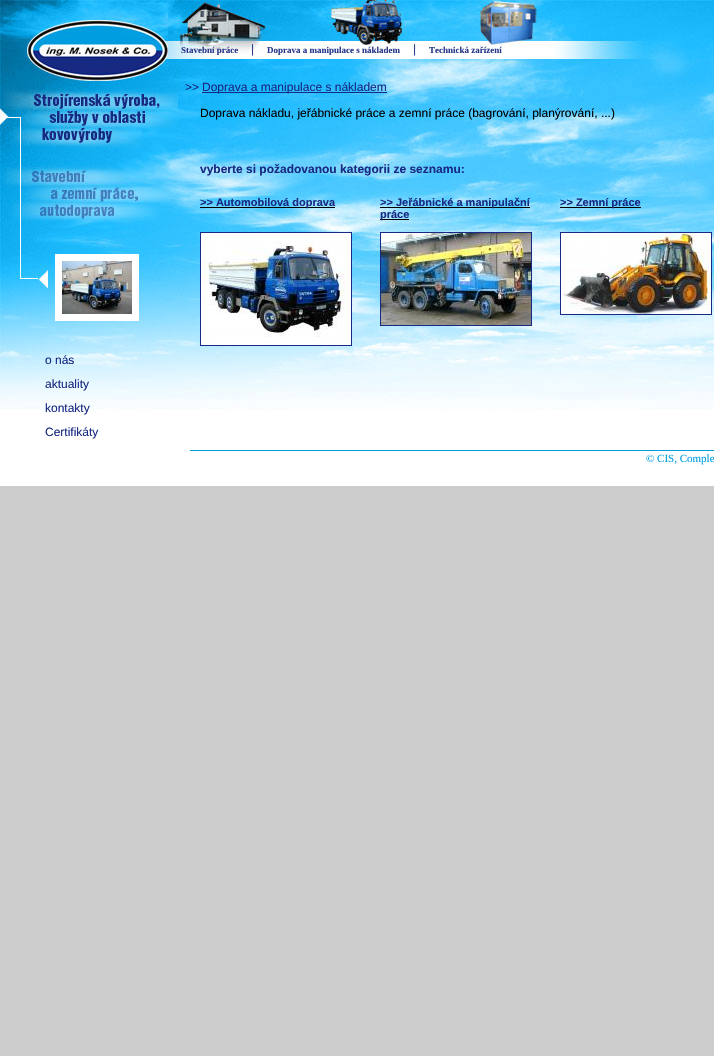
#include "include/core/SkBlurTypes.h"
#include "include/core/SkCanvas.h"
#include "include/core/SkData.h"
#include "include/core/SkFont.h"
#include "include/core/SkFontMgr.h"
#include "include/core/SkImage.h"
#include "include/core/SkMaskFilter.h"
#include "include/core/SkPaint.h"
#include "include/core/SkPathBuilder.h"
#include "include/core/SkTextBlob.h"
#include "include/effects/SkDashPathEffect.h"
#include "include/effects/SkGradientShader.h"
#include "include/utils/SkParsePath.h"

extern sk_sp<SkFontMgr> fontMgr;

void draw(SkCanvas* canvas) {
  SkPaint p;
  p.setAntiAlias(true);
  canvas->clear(SkColorSetRGB(204, 204, 204));
  p.setColor(SK_ColorWHITE);
  canvas->drawRect(SkRect::MakeLTRB(0, 410, 714, 486), p);
  canvas->drawImageRect(SkImages::DeferredFromEncodedData(SkData::MakeFromFileName("images/1.png")), SkRect::MakeLTRB(0, 0, 714, 410), SkSamplingOptions());
  canvas->drawImageRect(SkImages::DeferredFromEncodedData(SkData::MakeFromFileName("images/2.png")), SkRect::MakeLTRB(27, 20, 168, 81), SkSamplingOptions());
  canvas->drawImageRect(SkImages::DeferredFromEncodedData(SkData::MakeFromFileName("images/3.png")), SkRect::MakeLTRB(168, 0, 672, 59), SkSamplingOptions());
  canvas->drawImageRect(SkImages::DeferredFromEncodedData(SkData::MakeFromFileName("images/4.png")), SkRect::MakeLTRB(32, 92, 168, 150), SkSamplingOptions());
  p.setColor(SkColorSetRGB(23, 41, 130));
  canvas->drawRect(SkRect::MakeLTRB(202, 92, 387, 93), p);
  p.setColor(SK_ColorBLACK);
  canvas->drawRect(SkRect::MakeLTRB(200, 207, 335, 208), p);
  p.setStyle(SkPaint::kStroke_Style);
  p.setStrokeWidth(1);
  p.setColor(SkColorSetRGB(23, 41, 130));
  canvas->drawRect(SkRect::MakeLTRB(200.5f, 232.5f, 351.5f, 345.5f), p);
  canvas->drawImageRect(SkImages::DeferredFromEncodedData(SkData::MakeFromFileName("images/5.png")), SkRect::MakeLTRB(201, 233, 351, 345), SkSamplingOptions());
  p.setStyle(SkPaint::kFill_Style);
  p.setColor(SK_ColorBLACK);
  canvas->drawRect(SkRect::MakeLTRB(380, 207, 530, 208), p);
  canvas->drawRect(SkRect::MakeLTRB(380, 219, 409, 220), p);
  p.setStyle(SkPaint::kStroke_Style);
  p.setColor(SkColorSetRGB(23, 41, 130));
  canvas->drawRect(SkRect::MakeLTRB(380.5f, 232.5f, 531.5f, 325.5f), p);
  canvas->drawImageRect(SkImages::DeferredFromEncodedData(SkData::MakeFromFileName("images/6.png")), SkRect::MakeLTRB(381, 233, 531, 325), SkSamplingOptions());
  p.setStyle(SkPaint::kFill_Style);
  p.setColor(SK_ColorBLACK);
  canvas->drawRect(SkRect::MakeLTRB(560, 207, 641, 208), p);
  p.setStyle(SkPaint::kStroke_Style);
  p.setColor(SkColorSetRGB(23, 41, 130));
  canvas->drawRect(SkRect::MakeLTRB(560.5f, 232.5f, 711.5f, 314.5f), p);
  canvas->drawImageRect(SkImages::DeferredFromEncodedData(SkData::MakeFromFileName("images/7.png")), SkRect::MakeLTRB(561, 233, 711, 314), SkSamplingOptions());
  p.setStyle(SkPaint::kFill_Style);
  p.setColor(SkColorSetRGB(0, 158, 224));
  canvas->drawRect(SkRect::MakeLTRB(190, 450, 714, 451), p);
  canvas->drawImageRect(SkImages::DeferredFromEncodedData(SkData::MakeFromFileName("images/8.png")), SkRect::MakeLTRB(32, 164, 168, 225), SkSamplingOptions());
  p.setStyle(SkPaint::kStroke_Style);
  p.setStrokeWidth(7);
  p.setColor(SK_ColorWHITE);
  canvas->drawRect(SkRect::MakeLTRB(58.5f, 257.5f, 135.5f, 317.5f), p);
  canvas->drawImageRect(SkImages::DeferredFromEncodedData(SkData::MakeFromFileName("images/9.png")), SkRect::MakeLTRB(62, 261, 132, 314), SkSamplingOptions());
  SkFont font1(fontMgr->matchFamilyStyle("Liberation Serif", SkFontStyle::Bold()), 9);
  font1.setSubpixel(true);
  p.setStyle(SkPaint::kFill_Style);
  p.setColor(SkColorSetRGB(38, 55, 138));
  canvas->drawString("Stavební práce", 181, 53, font1, p);
  SkFont font2(fontMgr->matchFamilyStyle("Liberation Sans", SkFontStyle::Normal()), 12);
  font2.setSubpixel(true);
  canvas->drawString("|", 251, 53, font2, p);
  canvas->drawString("Doprava a manipulace s nákladem", 267, 53, font1, p);
  canvas->drawString("|", 413, 53, font2, p);
  canvas->drawString("Technická zařízení", 429, 53, font1, p);
  p.setColor(SkColorSetRGB(23, 41, 130));
  canvas->drawString(">>", 185, 91, font2, p);
  canvas->drawString("Doprava a manipulace s nákladem", 202, 91, font2, p);
  p.setColor(SK_ColorBLACK);
  canvas->drawString("Doprava nákladu, jeřábnické práce a zemní práce (bagrování, planýrování, ...)", 200, 117, font2, p);
  SkFont font3(fontMgr->matchFamilyStyle("Liberation Sans", SkFontStyle::Bold()), 12);
  font3.setSubpixel(true);
  p.setColor(SkColorSetRGB(23, 41, 130));
  canvas->drawString("vyberte si požadovanou kategorii ze seznamu:", 200, 173, font3, p);
  SkFont font4(fontMgr->matchFamilyStyle("Liberation Sans", SkFontStyle::Bold()), 11);
  font4.setSubpixel(true);
  canvas->drawString(">> Automobilová doprava", 200, 206, font4, p);
  canvas->drawString(">> Jeřábnické a manipulační", 380, 206, font4, p);
  canvas->drawString("práce", 380, 218, font4, p);
  canvas->drawString(">> Zemní práce", 560, 206, font4, p);
  SkFont font5(fontMgr->matchFamilyStyle("Liberation Serif", SkFontStyle::Normal()), 11);
  font5.setSubpixel(true);
  p.setColor(SkColorSetRGB(0, 158, 224));
  canvas->drawString("© CIS, Comple", 646, 462, font5, p);
  p.setColor(SkColorSetRGB(23, 41, 130));
  canvas->drawString("o nás", 45, 364, font2, p);
  canvas->drawString("aktuality", 45, 388, font2, p);
  canvas->drawString("kontakty", 45, 412, font2, p);
  canvas->drawString("Certifikáty", 45, 436, font2, p);
}
